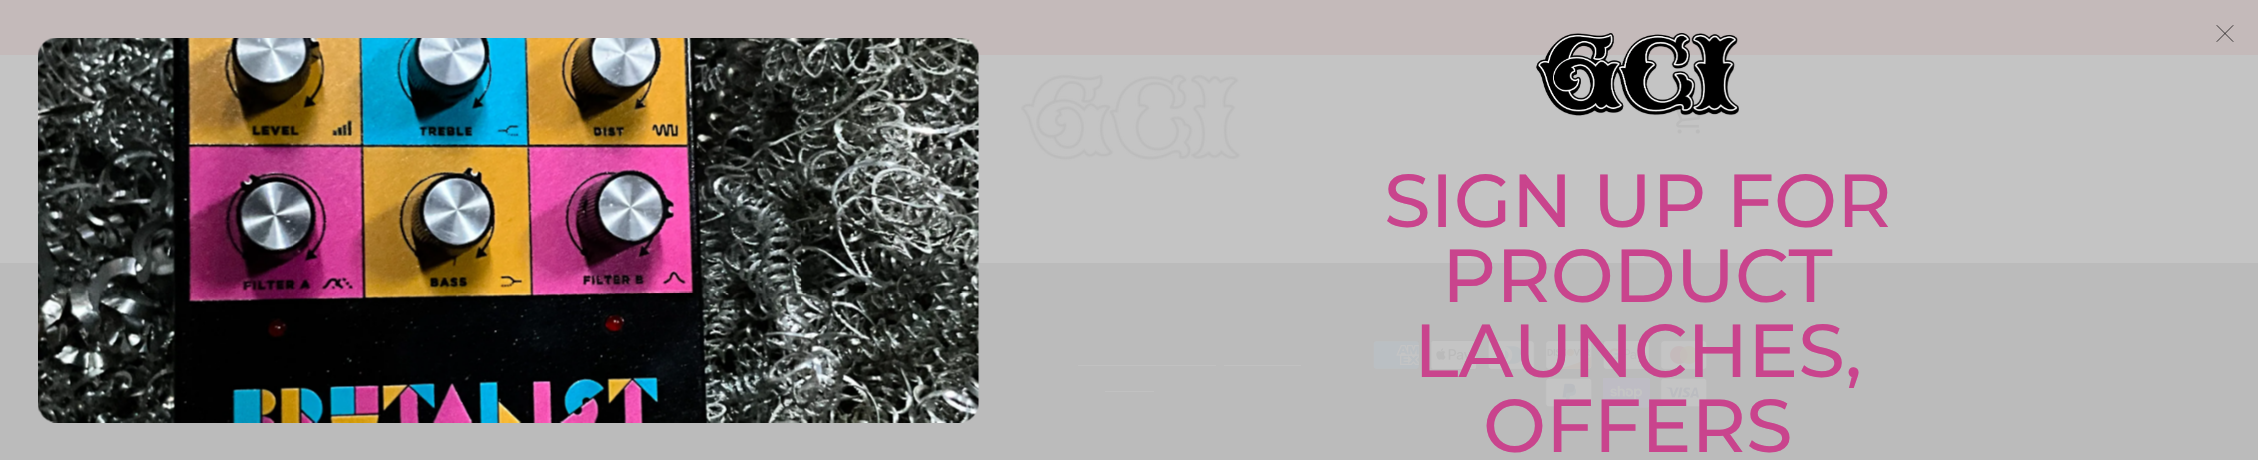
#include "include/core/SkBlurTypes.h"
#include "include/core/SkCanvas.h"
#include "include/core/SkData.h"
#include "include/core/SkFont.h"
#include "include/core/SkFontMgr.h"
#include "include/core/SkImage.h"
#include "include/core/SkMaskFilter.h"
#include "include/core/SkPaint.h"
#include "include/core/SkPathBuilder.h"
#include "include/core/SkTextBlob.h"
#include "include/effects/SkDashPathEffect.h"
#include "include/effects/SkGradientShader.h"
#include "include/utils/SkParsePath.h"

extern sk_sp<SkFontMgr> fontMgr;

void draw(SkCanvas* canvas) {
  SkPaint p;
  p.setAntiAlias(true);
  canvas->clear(SkColorSetRGB(187, 187, 187));
  p.setColor(SkColorSetRGB(196, 186, 186));
  canvas->drawRect(SkRect::MakeLTRB(0, 0, 2258, 55), p);
  p.setColor(SkColorSetRGB(196, 196, 196));
  canvas->drawRect(SkRect::MakeLTRB(0, 55, 2258, 263), p);
  canvas->drawImageRect(SkImages::DeferredFromEncodedData(SkData::MakeFromFileName("images/1.png")), SkRect::MakeLTRB(1020, 73, 1241, 161), SkSamplingOptions());
  canvas->drawImageRect(SkImages::DeferredFromEncodedData(SkData::MakeFromFileName("images/2.png")), SkRect::MakeLTRB(1669, 98, 1701, 134), SkSamplingOptions());
  p.setColor(SkColorSetRGB(193, 193, 193));
  canvas->drawRect(SkRect::MakeLTRB(1078, 365, 1216, 366), p);
  canvas->drawRect(SkRect::MakeLTRB(1224, 365, 1301, 366), p);
  canvas->drawRect(SkRect::MakeLTRB(1105, 391, 1154, 392), p);
  canvas->drawImageRect(SkImages::DeferredFromEncodedData(SkData::MakeFromFileName("images/3.png")), SkRect::MakeLTRB(1373, 341, 1419, 369), SkSamplingOptions());
  canvas->drawImageRect(SkImages::DeferredFromEncodedData(SkData::MakeFromFileName("images/4.png")), SkRect::MakeLTRB(1430, 340, 1477, 370), SkSamplingOptions());
  canvas->drawImageRect(SkImages::DeferredFromEncodedData(SkData::MakeFromFileName("images/5.png")), SkRect::MakeLTRB(1488, 340, 1535, 370), SkSamplingOptions());
  canvas->drawImageRect(SkImages::DeferredFromEncodedData(SkData::MakeFromFileName("images/6.png")), SkRect::MakeLTRB(1546, 341, 1592, 369), SkSamplingOptions());
  canvas->drawImageRect(SkImages::DeferredFromEncodedData(SkData::MakeFromFileName("images/7.png")), SkRect::MakeLTRB(1603, 341, 1649, 369), SkSamplingOptions());
  canvas->drawImageRect(SkImages::DeferredFromEncodedData(SkData::MakeFromFileName("images/8.png")), SkRect::MakeLTRB(1660, 340, 1708, 370), SkSamplingOptions());
  canvas->drawImageRect(SkImages::DeferredFromEncodedData(SkData::MakeFromFileName("images/9.png")), SkRect::MakeLTRB(1545, 378, 1593, 408), SkSamplingOptions());
  canvas->drawImageRect(SkImages::DeferredFromEncodedData(SkData::MakeFromFileName("images/10.png")), SkRect::MakeLTRB(1603, 378, 1650, 408), SkSamplingOptions());
  canvas->drawImageRect(SkImages::DeferredFromEncodedData(SkData::MakeFromFileName("images/11.png")), SkRect::MakeLTRB(1660, 378, 1708, 408), SkSamplingOptions());
  canvas->drawImageRect(SkImages::DeferredFromEncodedData(SkData::MakeFromFileName("images/12.png")), SkRect::MakeLTRB(38, 38, 980, 423), SkSamplingOptions());
  canvas->drawImageRect(SkImages::DeferredFromEncodedData(SkData::MakeFromFileName("images/13.png")), SkRect::MakeLTRB(1536, 32, 1739, 116), SkSamplingOptions());
  p.setStyle(SkPaint::kStroke_Style);
  p.setStrokeWidth(0.9f);
  p.setStrokeCap(SkPaint::kRound_Cap);
  p.setColor(SkColorSetRGB(39, 37, 37));
  canvas->drawPath(SkPathBuilder().moveTo(2217, 25.5f).lineTo(2233, 41.5f).detach(), p);
  p.setColor(SkColorSetARGB(204, 0, 0, 0));
  canvas->drawPath(SkPathBuilder().moveTo(2233, 25.5f).lineTo(2217, 41.5f).detach(), p);
  SkFont font1(fontMgr->matchFamilyStyle("Montserrat", SkFontStyle(500, SkFontStyle::kNormal_Width, SkFontStyle::kUpright_Slant)), 75);
  font1.setSubpixel(true);
  p.setStyle(SkPaint::kFill_Style);
  p.setColor(SkColorSetRGB(201, 68, 141));
  canvas->drawString("SIGN UP FOR", 1384, 227, font1, p);
  canvas->drawString("PRODUCT", 1442, 302, font1, p);
  canvas->drawString("LAUNCHES,", 1414, 377, font1, p);
  canvas->drawString("OFFERS", 1483, 452, font1, p);
}
